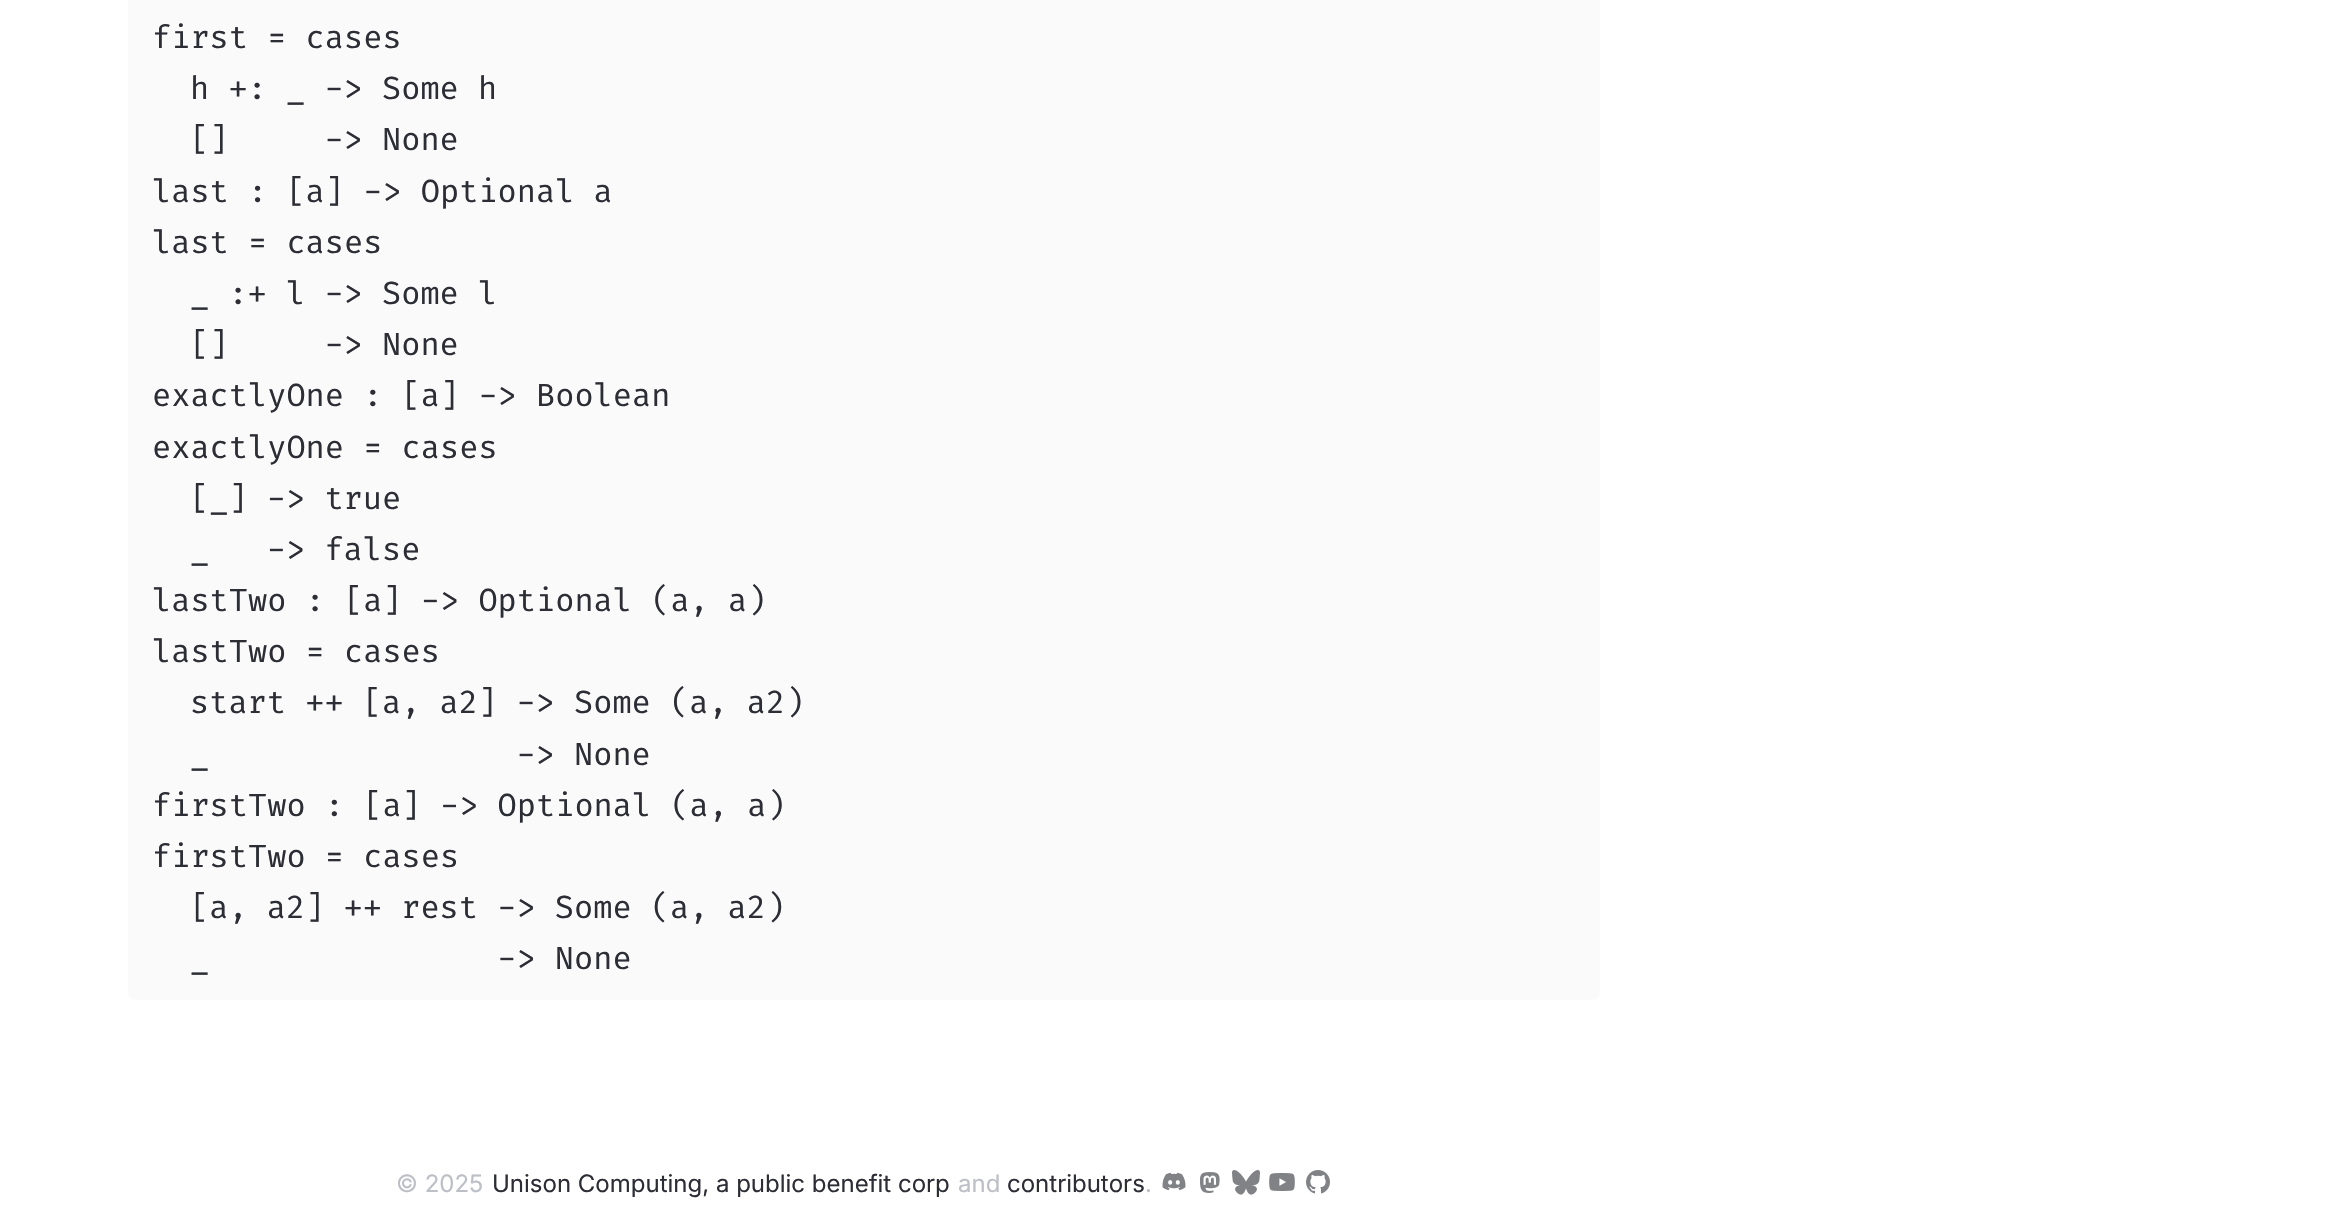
#include "include/core/SkBlurTypes.h"
#include "include/core/SkCanvas.h"
#include "include/core/SkData.h"
#include "include/core/SkFont.h"
#include "include/core/SkFontMgr.h"
#include "include/core/SkImage.h"
#include "include/core/SkMaskFilter.h"
#include "include/core/SkPaint.h"
#include "include/core/SkPathBuilder.h"
#include "include/core/SkTextBlob.h"
#include "include/effects/SkDashPathEffect.h"
#include "include/effects/SkGradientShader.h"
#include "include/utils/SkParsePath.h"

extern sk_sp<SkFontMgr> fontMgr;

void draw(SkCanvas* canvas) {
  SkPaint p;
  p.setAntiAlias(true);
  canvas->clear(SK_ColorWHITE);
  p.setColor(SkColorSetRGB(250, 250, 251));
  canvas->drawRoundRect(SkRect::MakeLTRB(128, -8, 1600, 1000), 8, 8, p);
  canvas->drawImageRect(SkImages::DeferredFromEncodedData(SkData::MakeFromFileName("images/1.png")), SkRect::MakeLTRB(1162, 1172, 1186, 1191), SkSamplingOptions());
  canvas->drawImageRect(SkImages::DeferredFromEncodedData(SkData::MakeFromFileName("images/2.png")), SkRect::MakeLTRB(1200, 1172, 1220, 1193), SkSamplingOptions());
  canvas->drawImageRect(SkImages::DeferredFromEncodedData(SkData::MakeFromFileName("images/3.png")), SkRect::MakeLTRB(1232, 1170, 1260, 1195), SkSamplingOptions());
  canvas->drawImageRect(SkImages::DeferredFromEncodedData(SkData::MakeFromFileName("images/4.png")), SkRect::MakeLTRB(1269, 1173, 1295, 1191), SkSamplingOptions());
  canvas->drawImageRect(SkImages::DeferredFromEncodedData(SkData::MakeFromFileName("images/5.png")), SkRect::MakeLTRB(1306, 1170, 1330, 1194), SkSamplingOptions());
  SkFont font1(fontMgr->matchFamilyStyle("Fira Code", SkFontStyle(300, SkFontStyle::kNormal_Width, SkFontStyle::kUpright_Slant)), 32);
  font1.setSubpixel(true);
  p.setColor(SkColorSetRGB(45, 46, 53));
  canvas->drawString("first = cases", 152, 48, font1, p);
  canvas->drawString("h +: _ -> Some h", 190, 99, font1, p);
  canvas->drawString("[]     -> None", 190, 150, font1, p);
  canvas->drawString("last : [a] -> Optional a", 152, 202, font1, p);
  canvas->drawString("last = cases", 152, 253, font1, p);
  canvas->drawString("_ :+ l -> Some l", 190, 304, font1, p);
  canvas->drawString("[]     -> None", 190, 355, font1, p);
  canvas->drawString("exactlyOne : [a] -> Boolean", 152, 406, font1, p);
  canvas->drawString("exactlyOne = cases", 152, 458, font1, p);
  canvas->drawString("[_] -> true", 190, 509, font1, p);
  canvas->drawString("_   -> false", 190, 560, font1, p);
  canvas->drawString("lastTwo : [a] -> Optional (a, a)", 152, 611, font1, p);
  canvas->drawString("lastTwo = cases", 152, 662, font1, p);
  canvas->drawString("start ++ [a, a2] -> Some (a, a2)", 190, 713, font1, p);
  canvas->drawString("_                -> None", 190, 765, font1, p);
  canvas->drawString("firstTwo : [a] -> Optional (a, a)", 152, 816, font1, p);
  canvas->drawString("firstTwo = cases", 152, 867, font1, p);
  canvas->drawString("[a, a2] ++ rest -> Some (a, a2)", 190, 918, font1, p);
  canvas->drawString("_               -> None", 190, 969, font1, p);
  SkFont font2(fontMgr->matchFamilyStyle("Inter", SkFontStyle::Normal()), 24);
  font2.setSubpixel(true);
  p.setColor(SkColorSetRGB(189, 191, 198));
  canvas->drawString("© 2025", 396, 1192, font2, p);
  p.setColor(SkColorSetRGB(45, 46, 53));
  canvas->drawString("Unison Computing, a public benefit corp", 492, 1192, font2, p);
  p.setColor(SkColorSetRGB(189, 191, 198));
  canvas->drawString("and", 958, 1192, font2, p);
  p.setColor(SkColorSetRGB(45, 46, 53));
  canvas->drawString("contributors", 1007, 1192, font2, p);
  p.setColor(SkColorSetRGB(189, 191, 198));
  canvas->drawString(".", 1145, 1192, font2, p);
}
